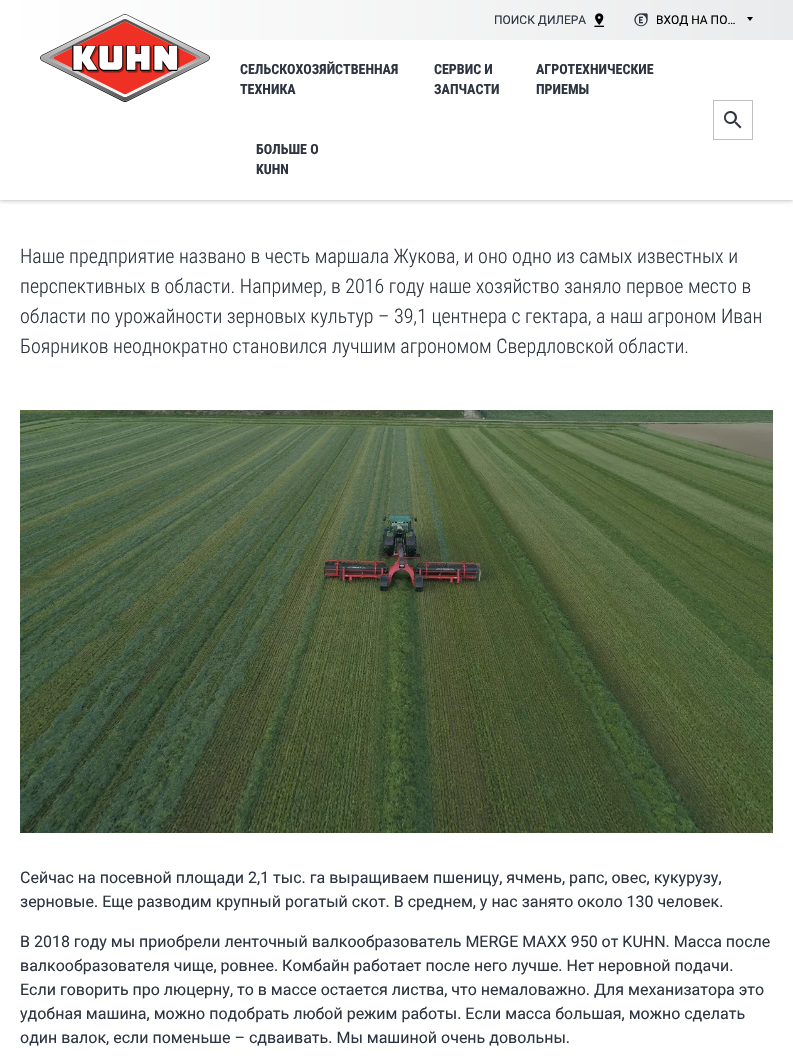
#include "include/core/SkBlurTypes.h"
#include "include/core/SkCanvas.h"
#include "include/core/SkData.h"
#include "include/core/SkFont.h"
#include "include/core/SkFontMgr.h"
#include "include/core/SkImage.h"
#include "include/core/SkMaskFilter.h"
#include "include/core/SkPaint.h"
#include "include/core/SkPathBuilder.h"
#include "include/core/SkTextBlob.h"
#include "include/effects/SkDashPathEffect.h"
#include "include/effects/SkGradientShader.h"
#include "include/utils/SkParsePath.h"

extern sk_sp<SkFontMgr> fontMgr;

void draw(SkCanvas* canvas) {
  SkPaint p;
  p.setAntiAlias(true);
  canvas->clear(SK_ColorWHITE);
  p.setColor(SkColorSetARGB(26, 0, 0, 0));
  p.setMaskFilter(SkMaskFilter::MakeBlur(kNormal_SkBlurStyle, 1));
  canvas->drawRect(SkRect::MakeLTRB(0, 1, 793, 201), p);
  p.setMaskFilter(nullptr);
  p.setMaskFilter(SkMaskFilter::MakeBlur(kNormal_SkBlurStyle, 2));
  canvas->drawRect(SkRect::MakeLTRB(0, 2, 793, 202), p);
  p.setMaskFilter(nullptr);
  p.setColor(SK_ColorWHITE);
  canvas->drawRect(SkRect::MakeLTRB(0, 40, 793, 200), p);
  {
    const SkColor colors[] = {SK_ColorWHITE, SkColorSetRGB(234, 235, 236)};
    const float stops[] = {0, 1};
    const SkPoint ends[] = {{0, 20}, {793, 20}};
    p.setShader(SkGradientShader::MakeLinear(ends, colors, stops, 2, SkTileMode::kClamp));
    p.setAlpha(255);
  }
  canvas->drawRect(SkRect::MakeLTRB(0, 0, 793, 40), p);
  canvas->drawImageRect(SkImages::DeferredFromEncodedData(SkData::MakeFromFileName("images/1.png")), SkRect::MakeLTRB(594, 13, 604, 27), SkSamplingOptions());
  canvas->drawImageRect(SkImages::DeferredFromEncodedData(SkData::MakeFromFileName("images/2.png")), SkRect::MakeLTRB(634, 13, 648, 27), SkSamplingOptions());
  p.setShader(nullptr);
  p.setColor(SK_ColorBLACK);
  canvas->drawPath(SkPathBuilder().moveTo(747, 17).lineTo(753, 17).lineTo(750, 21).close().detach(), p);
  canvas->drawImageRect(SkImages::DeferredFromEncodedData(SkData::MakeFromFileName("images/3.png")), SkRect::MakeLTRB(40, 14, 210, 102), SkSamplingOptions());
  canvas->drawImageRect(SkImages::DeferredFromEncodedData(SkData::MakeFromFileName("images/4.png")), SkRect::MakeLTRB(724, 111, 742, 129), SkSamplingOptions());
  p.setStyle(SkPaint::kStroke_Style);
  p.setStrokeWidth(1);
  p.setColor(SkColorSetRGB(191, 191, 191));
  canvas->drawRect(SkRect::MakeLTRB(713.5f, 100.5f, 752.5f, 139.5f), p);
  canvas->drawImageRect(SkImages::DeferredFromEncodedData(SkData::MakeFromFileName("images/5.png")), SkRect::MakeLTRB(20, 410, 773, 833), SkSamplingOptions());
  SkFont font1(fontMgr->matchFamilyStyle("Roboto", SkFontStyle::Normal()), 12);
  font1.setSubpixel(true);
  p.setStyle(SkPaint::kFill_Style);
  p.setColor(SkColorSetRGB(46, 52, 64));
  canvas->drawString("ПОИСК ДИЛЕРА", 494, 24, font1, p);
  p.setColor(SK_ColorBLACK);
  canvas->drawString("ВХОД НА ПО…", 656, 24, font1, p);
  SkFont font2(fontMgr->matchFamilyStyle("Roboto Condensed", SkFontStyle::Bold()), 14);
  font2.setSubpixel(true);
  p.setColor(SkColorSetRGB(46, 52, 64));
  canvas->drawString("СЕЛЬСКОХОЗЯЙСТВЕННАЯ", 240, 74, font2, p);
  canvas->drawString("ТЕХНИКА", 240, 94, font2, p);
  canvas->drawString("СЕРВИС И", 434, 74, font2, p);
  canvas->drawString("ЗАПЧАСТИ", 434, 94, font2, p);
  canvas->drawString("АГРОТЕХНИЧЕСКИЕ", 536, 74, font2, p);
  canvas->drawString("ПРИЕМЫ", 536, 94, font2, p);
  canvas->drawString("БОЛЬШЕ О", 256, 154, font2, p);
  canvas->drawString("KUHN", 256, 174, font2, p);
  SkFont font3(fontMgr->matchFamilyStyle("Roboto Condensed", SkFontStyle(300, SkFontStyle::kNormal_Width, SkFontStyle::kUpright_Slant)), 20);
  font3.setSubpixel(true);
  canvas->drawString("Наше предприятие названо в честь маршала Жукова, и оно одно из самых известных и", 20, 263, font3, p);
  canvas->drawString("перспективных в области. Например, в 2016 году наше хозяйство заняло первое место в", 20, 293, font3, p);
  canvas->drawString("области по урожайности зерновых культур – 39,1 центнера с гектара, а наш агроном Иван", 20, 323, font3, p);
  canvas->drawString("Боярников неоднократно становился лучшим агрономом Свердловской области.", 20, 353, font3, p);
  SkFont font4(fontMgr->matchFamilyStyle("Roboto", SkFontStyle::Normal()), 16);
  font4.setSubpixel(true);
  canvas->drawString("Сейчас на посевной площади 2,1 тыс. га выращиваем пшеницу, ячмень, рапс, овес, кукурузу,", 20, 883, font4, p);
  canvas->drawString("зерновые. Еще разводим крупный рогатый скот. В среднем, у нас занято около 130 человек.", 20, 907, font4, p);
  canvas->drawString("В 2018 году мы приобрели ленточный валкообразователь MERGE MAXX 950 от KUHN. Масса после", 20, 947, font4, p);
  canvas->drawString("валкообразователя чище, ровнее. Комбайн работает после него лучше. Нет неровной подачи.", 20, 971, font4, p);
  canvas->drawString("Если говорить про люцерну, то в массе остается листва, что немаловажно. Для механизатора это", 20, 995, font4, p);
  canvas->drawString("удобная машина, можно подобрать любой режим работы. Если масса большая, можно сделать", 20, 1019, font4, p);
  canvas->drawString("один валок, если поменьше – сдваивать. Мы машиной очень довольны.", 20, 1043, font4, p);
}
